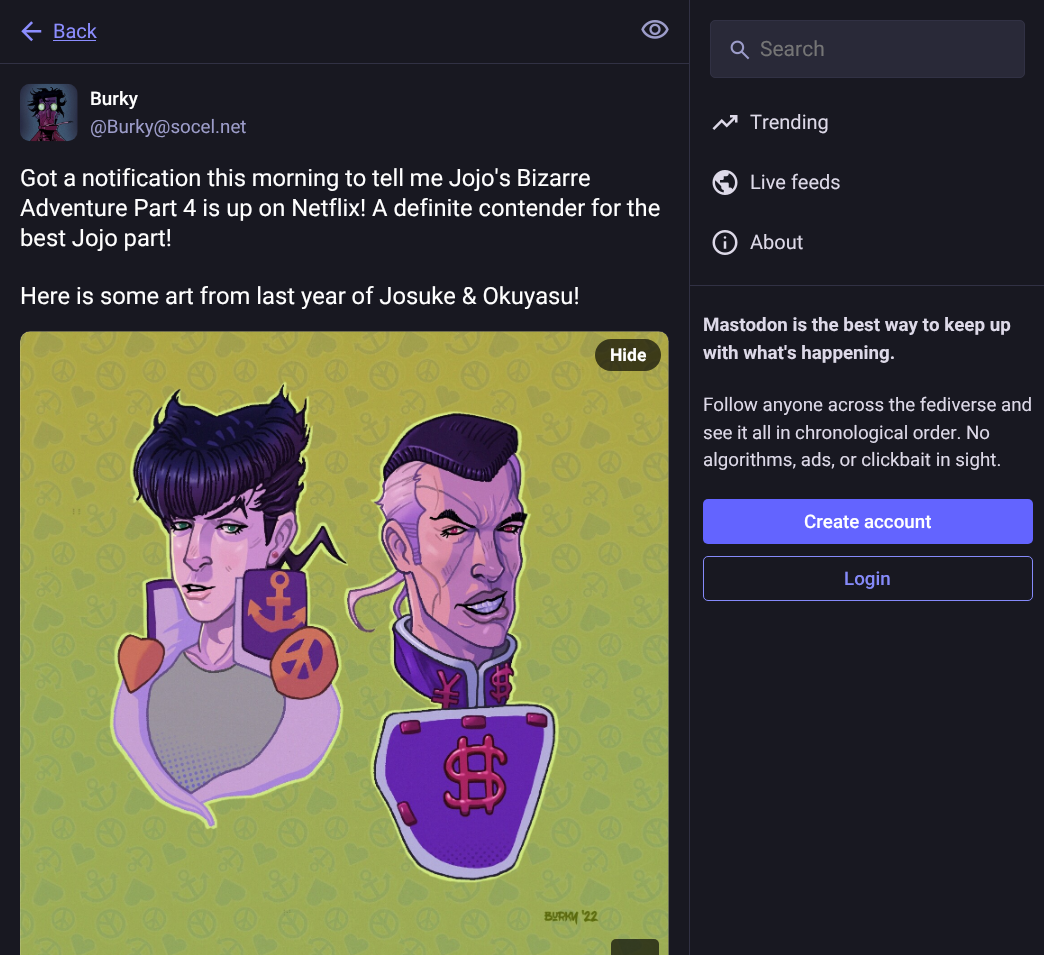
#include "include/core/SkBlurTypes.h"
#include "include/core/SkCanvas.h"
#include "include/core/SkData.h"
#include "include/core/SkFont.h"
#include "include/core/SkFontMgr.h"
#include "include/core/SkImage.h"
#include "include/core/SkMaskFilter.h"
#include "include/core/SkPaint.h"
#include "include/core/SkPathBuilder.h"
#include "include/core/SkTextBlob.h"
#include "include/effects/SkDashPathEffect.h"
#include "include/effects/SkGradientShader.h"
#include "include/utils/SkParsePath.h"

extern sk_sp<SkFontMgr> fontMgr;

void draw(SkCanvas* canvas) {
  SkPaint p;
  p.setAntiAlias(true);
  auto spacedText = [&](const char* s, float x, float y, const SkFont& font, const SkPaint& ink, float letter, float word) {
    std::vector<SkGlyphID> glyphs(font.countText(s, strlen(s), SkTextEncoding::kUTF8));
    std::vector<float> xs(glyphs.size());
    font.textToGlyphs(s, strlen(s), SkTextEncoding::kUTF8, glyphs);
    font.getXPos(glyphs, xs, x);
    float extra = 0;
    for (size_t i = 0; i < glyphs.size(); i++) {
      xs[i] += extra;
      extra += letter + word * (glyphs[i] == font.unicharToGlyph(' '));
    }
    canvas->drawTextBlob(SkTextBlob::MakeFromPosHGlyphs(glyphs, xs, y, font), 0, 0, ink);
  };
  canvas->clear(SkColorSetRGB(24, 24, 33));
  p.setColor(SkColorSetRGB(49, 49, 68));
  canvas->drawRect(SkRect::MakeLTRB(0, 63, 689, 64), p);
  canvas->drawImageRect(SkImages::DeferredFromEncodedData(SkData::MakeFromFileName("images/1.png")), SkRect::MakeLTRB(21, 21, 42, 42), SkSamplingOptions());
  p.setColor(SkColorSetRGB(140, 141, 255));
  canvas->drawRect(SkRect::MakeLTRB(53, 40, 96, 41), p);
  canvas->drawImageRect(SkImages::DeferredFromEncodedData(SkData::MakeFromFileName("images/2.png")), SkRect::MakeLTRB(641, 20, 669, 39), SkSamplingOptions());
  p.setColor(SkColorSetRGB(32, 32, 44));
  canvas->drawRoundRect(SkRect::MakeLTRB(20, 84, 78, 141), 10, 10, p);
  canvas->drawImageRect(SkImages::DeferredFromEncodedData(SkData::MakeFromFileName("images/3.png")), SkRect::MakeLTRB(20, 83, 78, 142), SkSamplingOptions());
  canvas->drawImageRect(SkImages::DeferredFromEncodedData(SkData::MakeFromFileName("images/4.png")), SkRect::MakeLTRB(20, 331, 669, 955), SkSamplingOptions());
  p.setStyle(SkPaint::kStroke_Style);
  p.setStrokeWidth(1);
  p.setColor(SkColorSetARGB(38, 252, 248, 255));
  canvas->drawRoundRect(SkRect::MakeLTRB(20.5f, 331.5f, 668.5f, 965.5f), 9.5f, 9.5f, p);
  p.setStyle(SkPaint::kFill_Style);
  p.setColor(SkColorSetARGB(166, 0, 0, 0));
  canvas->drawRoundRect(SkRect::MakeLTRB(611, 939, 659, 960), 5, 5, p);
  canvas->drawRoundRect(SkRect::MakeLTRB(595, 339, 661, 371), 16, 16, p);
  p.setColor(SkColorSetRGB(49, 49, 68));
  canvas->drawRect(SkRect::MakeLTRB(689, 0, 690, 955), p);
  p.setColor(SkColorSetRGB(41, 41, 56));
  canvas->drawRoundRect(SkRect::MakeLTRB(710.5f, 20.5f, 1024.5f, 77.5f), 4.5f, 4.5f, p);
  p.setStyle(SkPaint::kStroke_Style);
  p.setColor(SkColorSetRGB(49, 49, 68));
  canvas->drawRoundRect(SkRect::MakeLTRB(710.5f, 20.5f, 1024.5f, 77.5f), 4.5f, 4.5f, p);
  canvas->drawImageRect(SkImages::DeferredFromEncodedData(SkData::MakeFromFileName("images/5.png")), SkRect::MakeLTRB(730, 40, 750, 60), SkSamplingOptions());
  canvas->drawImageRect(SkImages::DeferredFromEncodedData(SkData::MakeFromFileName("images/6.png")), SkRect::MakeLTRB(712, 115, 738, 130), SkSamplingOptions());
  canvas->drawImageRect(SkImages::DeferredFromEncodedData(SkData::MakeFromFileName("images/7.png")), SkRect::MakeLTRB(712, 170, 738, 195), SkSamplingOptions());
  canvas->drawImageRect(SkImages::DeferredFromEncodedData(SkData::MakeFromFileName("images/8.png")), SkRect::MakeLTRB(712, 230, 738, 255), SkSamplingOptions());
  p.setStyle(SkPaint::kFill_Style);
  canvas->drawRect(SkRect::MakeLTRB(690, 285, 1044, 286), p);
  p.setColor(SkColorSetRGB(99, 100, 255));
  canvas->drawRoundRect(SkRect::MakeLTRB(703, 499, 1033, 544), 5, 5, p);
  p.setStyle(SkPaint::kStroke_Style);
  p.setColor(SkColorSetRGB(133, 138, 250));
  canvas->drawRoundRect(SkRect::MakeLTRB(703.5f, 556.5f, 1032.5f, 600.5f), 4.5f, 4.5f, p);
  SkFont font1(fontMgr->matchFamilyStyle("Roboto", SkFontStyle::Normal()), 20);
  font1.setSubpixel(true);
  p.setStyle(SkPaint::kFill_Style);
  p.setColor(SkColorSetRGB(140, 141, 255));
  canvas->drawString("Back", 53, 38, font1, p);
  SkFont font2(fontMgr->matchFamilyStyle("Roboto", SkFontStyle(500, SkFontStyle::kNormal_Width, SkFontStyle::kUpright_Slant)), 18.75f);
  font2.setSubpixel(true);
  p.setColor(SK_ColorWHITE);
  canvas->drawString("Burky", 90, 105, font2, p);
  SkFont font3(fontMgr->matchFamilyStyle("Roboto", SkFontStyle::Normal()), 18.75f);
  font3.setSubpixel(true);
  p.setColor(SkColorSetRGB(156, 156, 201));
  canvas->drawString("@Burky@socel.net", 90, 133, font3, p);
  SkFont font4(fontMgr->matchFamilyStyle("Roboto", SkFontStyle::Normal()), 23.75f);
  font4.setSubpixel(true);
  p.setColor(SK_ColorWHITE);
  spacedText("Got a notification this morning to tell me Jojo's Bizarre", 20, 186, font4, p, 0, -0.25f);
  canvas->drawString("Adventure Part 4 is up on Netflix! A definite contender for the", 20, 216, font4, p);
  canvas->drawString("best Jojo part!", 20, 246, font4, p);
  canvas->drawString("Here is some art from last year of Josuke & Okuyasu!", 20, 304, font4, p);
  SkFont font5(fontMgr->matchFamilyStyle("Roboto", SkFontStyle::Bold()), 17.5f);
  font5.setSubpixel(true);
  canvas->drawString("Hide", 610, 361, font5, p);
  SkFont font6(fontMgr->matchFamilyStyle("Roboto", SkFontStyle::Normal()), 21);
  font6.setSubpixel(true);
  p.setColor(SkColorSetRGB(117, 117, 117));
  canvas->drawString("Search", 760, 56, font6, p);
  p.setColor(SkColorSetRGB(221, 217, 232));
  canvas->drawString("Trending", 750, 129, font1, p);
  canvas->drawString("Live feeds", 750, 189, font1, p);
  canvas->drawString("About", 750, 249, font1, p);
  SkFont font7(fontMgr->matchFamilyStyle("Roboto", SkFontStyle::Bold()), 18.75f);
  font7.setSubpixel(true);
  canvas->drawString("Mastodon is the best way to keep up", 703, 331, font7, p);
  canvas->drawString("with what's happening.", 703, 359, font7, p);
  canvas->drawString("Follow anyone across the fediverse and", 703, 411, font3, p);
  spacedText("see it all in chronological order. No", 703, 439, font3, p, 0, -0.25f);
  canvas->drawString("algorithms, ads, or clickbait in sight.", 703, 466, font3, p);
  p.setColor(SK_ColorWHITE);
  canvas->drawString("Create account", 804, 528, font2, p);
  p.setColor(SkColorSetRGB(133, 138, 250));
  canvas->drawString("Login", 844, 585, font2, p);
}
